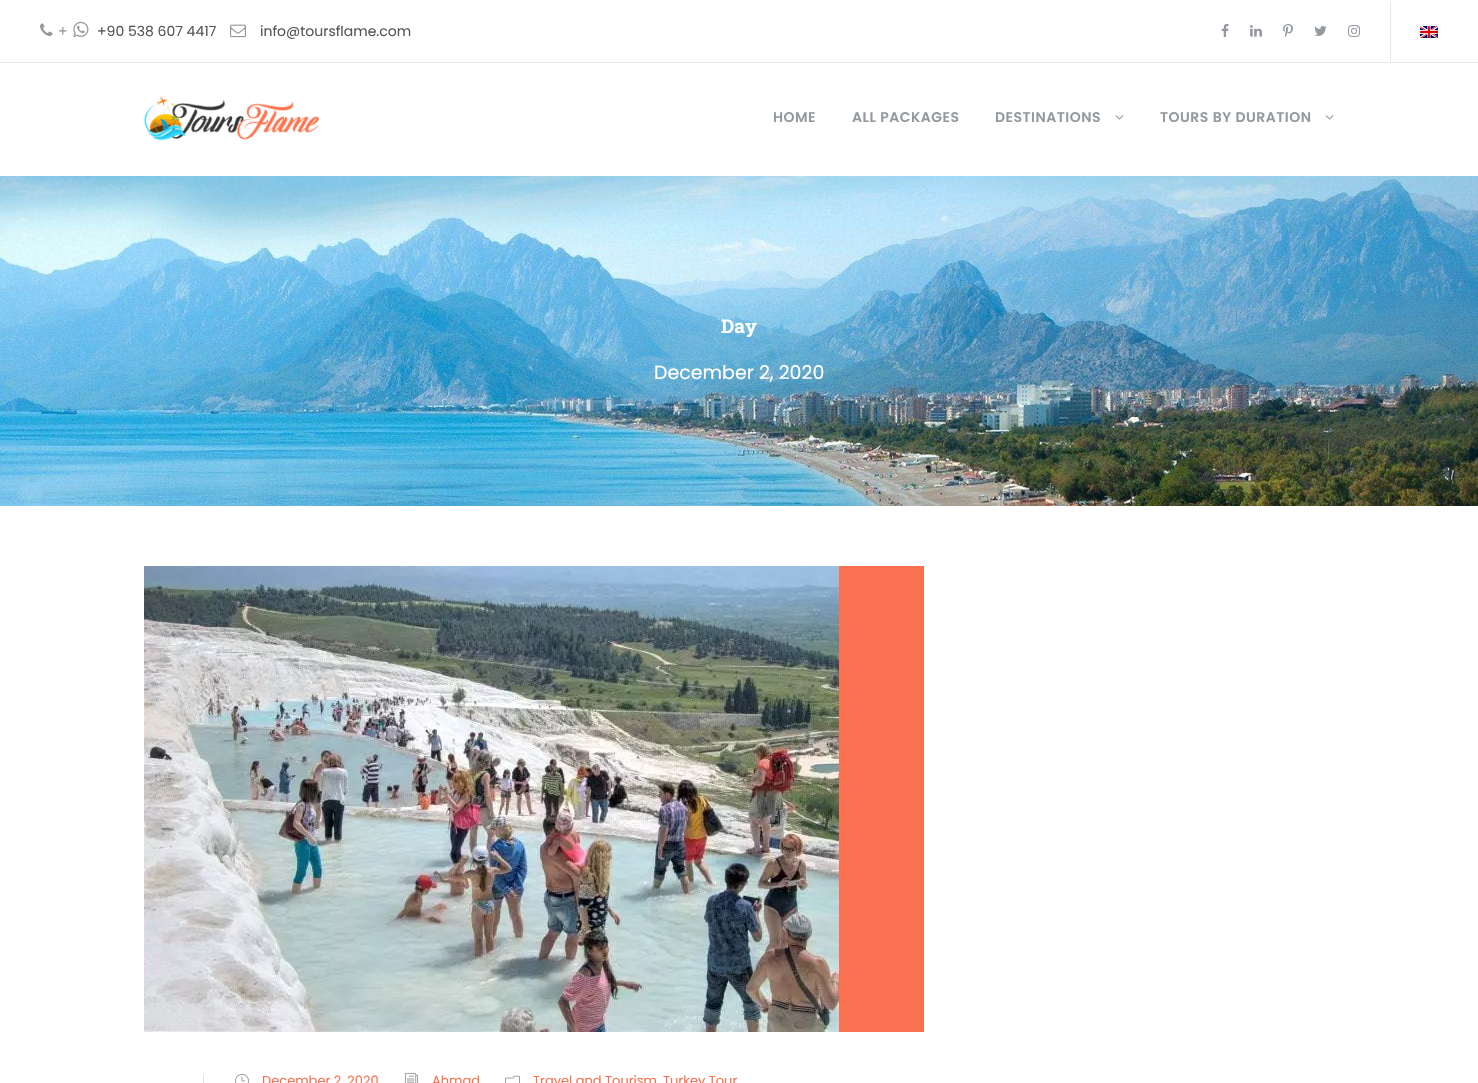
#include "include/core/SkBlurTypes.h"
#include "include/core/SkCanvas.h"
#include "include/core/SkData.h"
#include "include/core/SkFont.h"
#include "include/core/SkFontMgr.h"
#include "include/core/SkImage.h"
#include "include/core/SkMaskFilter.h"
#include "include/core/SkPaint.h"
#include "include/core/SkPathBuilder.h"
#include "include/core/SkTextBlob.h"
#include "include/effects/SkDashPathEffect.h"
#include "include/effects/SkGradientShader.h"
#include "include/utils/SkParsePath.h"

extern sk_sp<SkFontMgr> fontMgr;

void draw(SkCanvas* canvas) {
  SkPaint p;
  p.setAntiAlias(true);
  auto spacedText = [&](const char* s, float x, float y, const SkFont& font, const SkPaint& ink, float letter, float word) {
    std::vector<SkGlyphID> glyphs(font.countText(s, strlen(s), SkTextEncoding::kUTF8));
    std::vector<float> xs(glyphs.size());
    font.textToGlyphs(s, strlen(s), SkTextEncoding::kUTF8, glyphs);
    font.getXPos(glyphs, xs, x);
    float extra = 0;
    for (size_t i = 0; i < glyphs.size(); i++) {
      xs[i] += extra;
      extra += letter + word * (glyphs[i] == font.unicharToGlyph(' '));
    }
    canvas->drawTextBlob(SkTextBlob::MakeFromPosHGlyphs(glyphs, xs, y, font), 0, 0, ink);
  };
  canvas->clear(SK_ColorWHITE);
  p.setColor(SkColorSetRGB(233, 233, 233));
  canvas->drawRect(SkRect::MakeLTRB(0, 62, 1478, 63), p);
  canvas->drawImageRect(SkImages::DeferredFromEncodedData(SkData::MakeFromFileName("images/1.png")), SkRect::MakeLTRB(40, 23, 53, 36), SkSamplingOptions());
  canvas->drawImageRect(SkImages::DeferredFromEncodedData(SkData::MakeFromFileName("images/2.png")), SkRect::MakeLTRB(73, 21, 89, 38), SkSamplingOptions());
  canvas->drawImageRect(SkImages::DeferredFromEncodedData(SkData::MakeFromFileName("images/3.png")), SkRect::MakeLTRB(230, 24, 246, 38), SkSamplingOptions());
  canvas->drawImageRect(SkImages::DeferredFromEncodedData(SkData::MakeFromFileName("images/4.png")), SkRect::MakeLTRB(1221, 24, 1229, 37), SkSamplingOptions());
  canvas->drawImageRect(SkImages::DeferredFromEncodedData(SkData::MakeFromFileName("images/5.png")), SkRect::MakeLTRB(1250, 25, 1262, 37), SkSamplingOptions());
  canvas->drawImageRect(SkImages::DeferredFromEncodedData(SkData::MakeFromFileName("images/6.png")), SkRect::MakeLTRB(1283, 24, 1293, 37), SkSamplingOptions());
  canvas->drawImageRect(SkImages::DeferredFromEncodedData(SkData::MakeFromFileName("images/7.png")), SkRect::MakeLTRB(1314, 26, 1327, 36), SkSamplingOptions());
  canvas->drawImageRect(SkImages::DeferredFromEncodedData(SkData::MakeFromFileName("images/8.png")), SkRect::MakeLTRB(1348, 25, 1360, 37), SkSamplingOptions());
  canvas->drawRect(SkRect::MakeLTRB(1390, 2, 1391, 62), p);
  canvas->drawImageRect(SkImages::DeferredFromEncodedData(SkData::MakeFromFileName("images/9.png")), SkRect::MakeLTRB(1420, 26, 1438, 38), SkSamplingOptions());
  canvas->drawImageRect(SkImages::DeferredFromEncodedData(SkData::MakeFromFileName("images/10.png")), SkRect::MakeLTRB(144, 97, 319, 140), SkSamplingOptions());
  canvas->drawImageRect(SkImages::DeferredFromEncodedData(SkData::MakeFromFileName("images/11.png")), SkRect::MakeLTRB(1115, 115, 1124, 120), SkSamplingOptions());
  canvas->drawImageRect(SkImages::DeferredFromEncodedData(SkData::MakeFromFileName("images/11.png")), SkRect::MakeLTRB(1325, 115, 1334, 120), SkSamplingOptions());
  canvas->drawImageRect(SkImages::DeferredFromEncodedData(SkData::MakeFromFileName("images/12.png")), SkRect::MakeLTRB(0, 176, 1478, 506), SkSamplingOptions());
  p.setColor(SkColorSetRGB(249, 113, 80));
  canvas->drawRect(SkRect::MakeLTRB(839, 566, 924, 1032), p);
  canvas->drawImageRect(SkImages::DeferredFromEncodedData(SkData::MakeFromFileName("images/13.png")), SkRect::MakeLTRB(144, 566, 839, 1032), SkSamplingOptions());
  p.setColor(SkColorSetRGB(225, 225, 225));
  canvas->drawRect(SkRect::MakeLTRB(203, 1075, 204, 1083), p);
  canvas->drawImageRect(SkImages::DeferredFromEncodedData(SkData::MakeFromFileName("images/14.png")), SkRect::MakeLTRB(235, 1074, 249, 1083), SkSamplingOptions());
  canvas->drawImageRect(SkImages::DeferredFromEncodedData(SkData::MakeFromFileName("images/15.png")), SkRect::MakeLTRB(404, 1072, 419, 1083), SkSamplingOptions());
  canvas->drawImageRect(SkImages::DeferredFromEncodedData(SkData::MakeFromFileName("images/16.png")), SkRect::MakeLTRB(505, 1075, 520, 1083), SkSamplingOptions());
  SkFont font1(fontMgr->matchFamilyStyle("Poppins", SkFontStyle::Normal()), 14);
  font1.setSubpixel(true);
  p.setColor(SkColorSetRGB(153, 153, 153));
  canvas->drawString("+", 58, 36, font1, p);
  p.setColor(SkColorSetRGB(86, 86, 86));
  canvas->drawString("+90 538 607 4417", 97, 36, font1, p);
  canvas->drawString("info@toursflame.com", 260, 36, font1, p);
  SkFont font2(fontMgr->matchFamilyStyle("Poppins", SkFontStyle(600, SkFontStyle::kNormal_Width, SkFontStyle::kUpright_Slant)), 14);
  font2.setSubpixel(true);
  p.setColor(SkColorSetRGB(148, 153, 159));
  spacedText("HOME", 773, 122, font2, p, 0.5f, 0);
  spacedText("ALL PACKAGES", 852, 122, font2, p, 0.5f, 0);
  spacedText("DESTINATIONS", 995, 122, font2, p, 0.5f, 0);
  spacedText("TOURS BY DURATION", 1160, 122, font2, p, 0.5f, 0);
  SkFont font3(fontMgr->matchFamilyStyle("Roboto Slab", SkFontStyle::Bold()), 19);
  font3.setSubpixel(true);
  p.setColor(SK_ColorWHITE);
  canvas->drawString("Day", 721, 333, font3, p);
  SkFont font4(fontMgr->matchFamilyStyle("Poppins", SkFontStyle::Normal()), 19);
  font4.setSubpixel(true);
  canvas->drawString("December 2, 2020", 654, 379, font4, p);
  SkFont font5(fontMgr->matchFamilyStyle("Poppins", SkFontStyle::Normal()), 13);
  font5.setSubpixel(true);
  p.setColor(SkColorSetRGB(249, 113, 80));
  canvas->drawString("December 2, 2020", 262, 1085, font5, p);
  canvas->drawString("Ahmad", 432, 1085, font5, p);
  canvas->drawString("Travel and Tourism", 533, 1085, font5, p);
  canvas->drawString("Turkey Tour", 663, 1085, font5, p);
}
